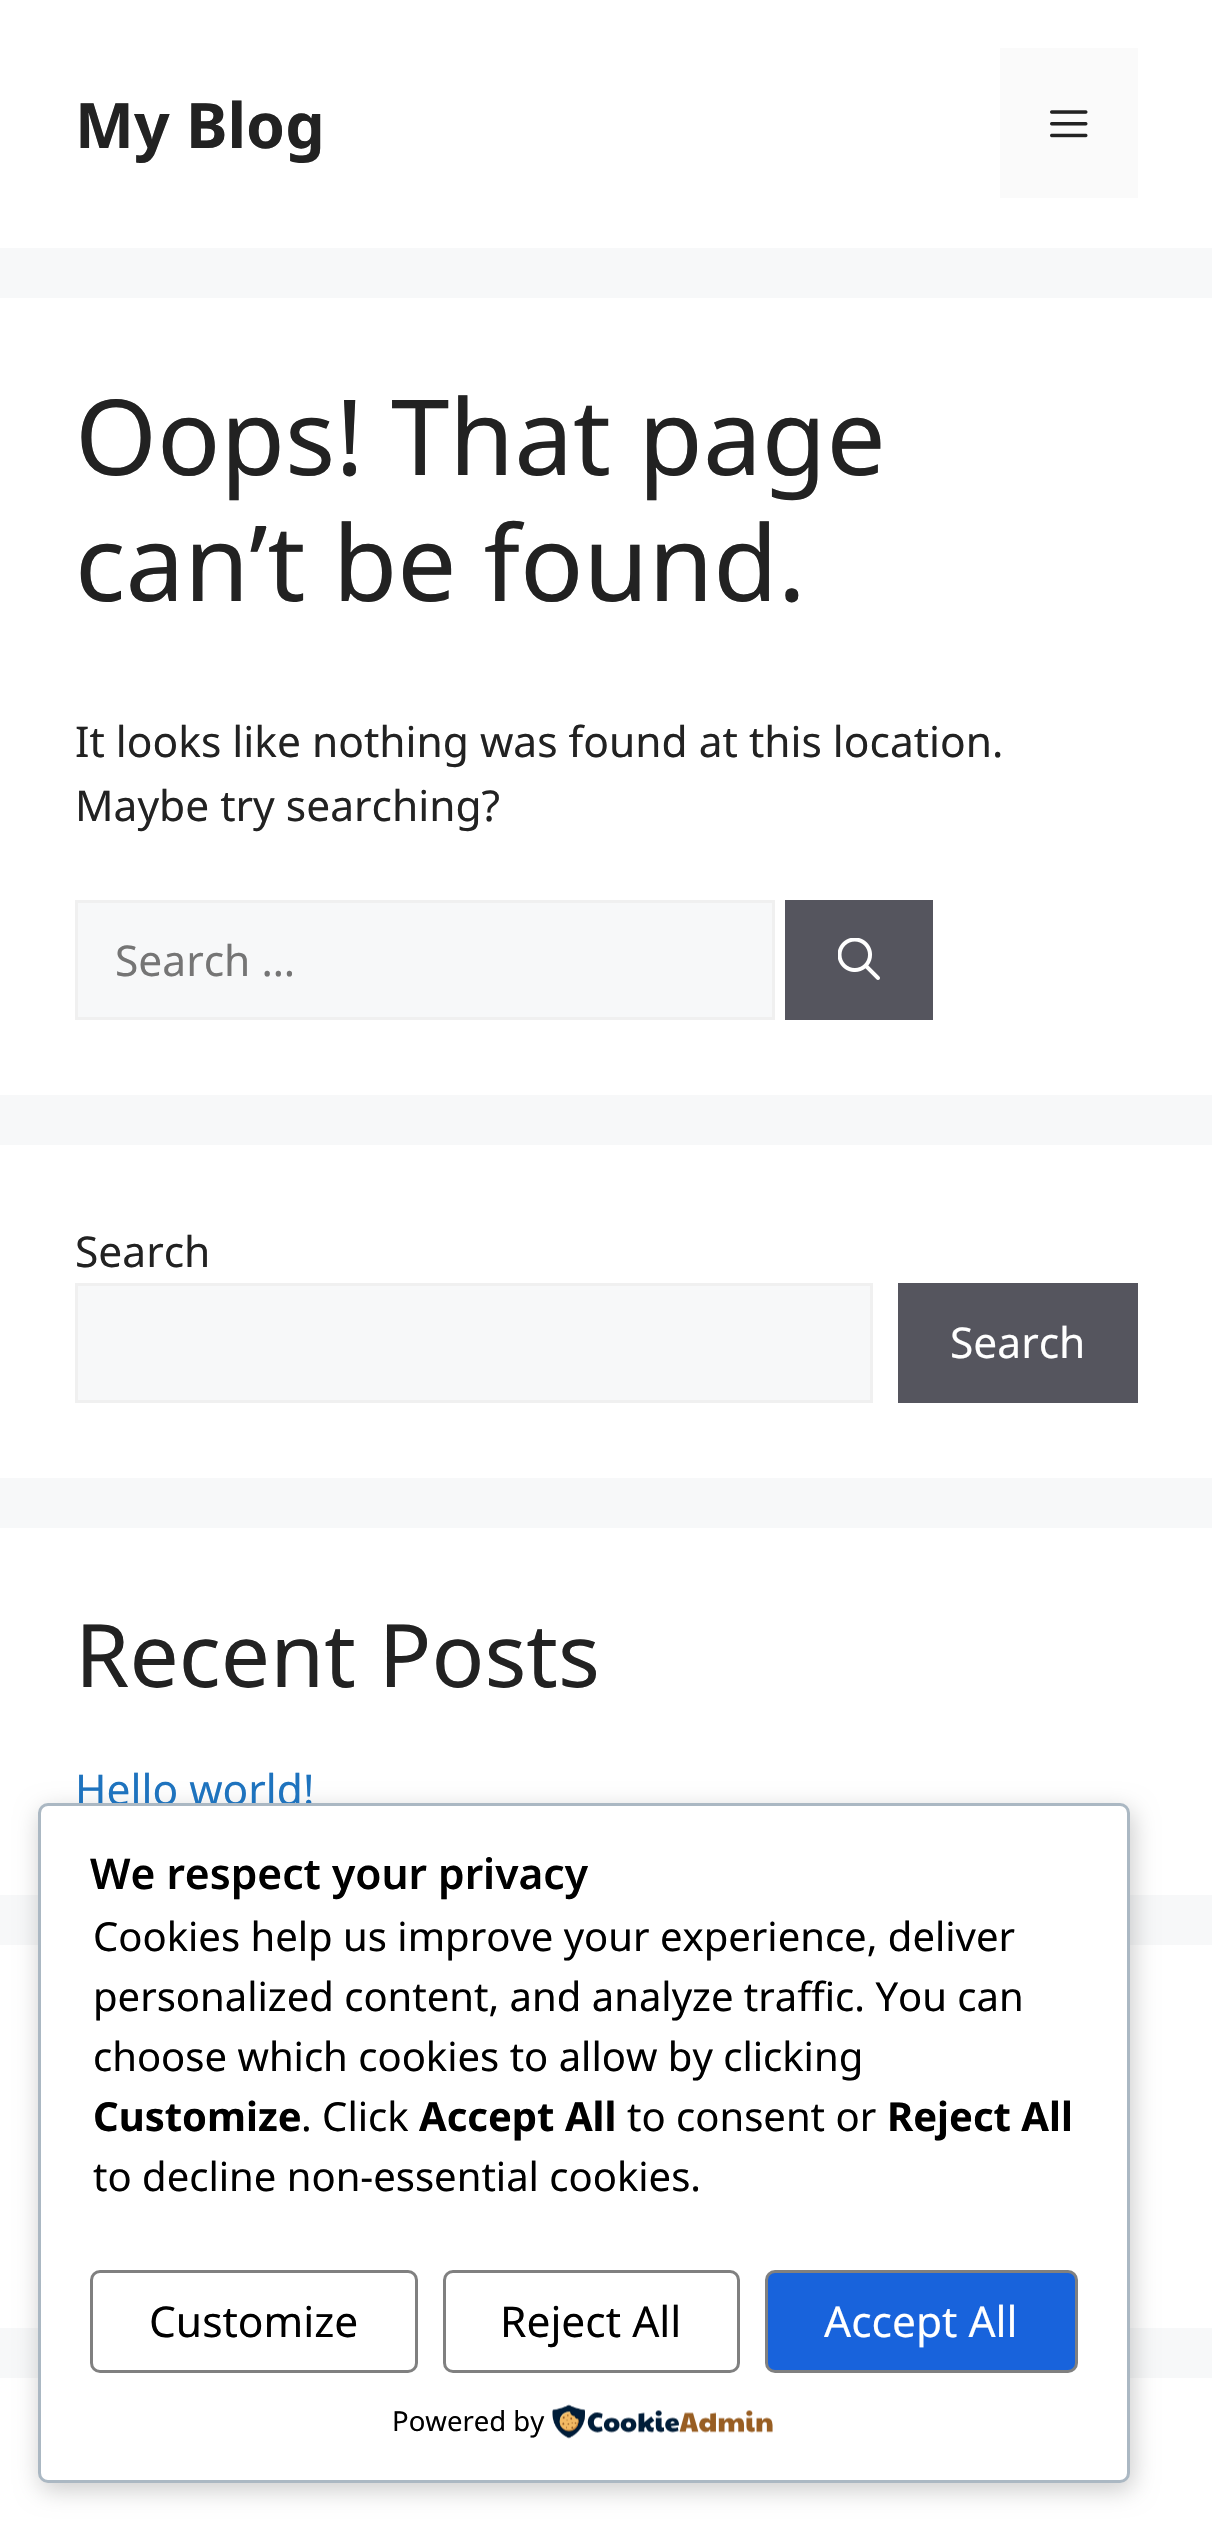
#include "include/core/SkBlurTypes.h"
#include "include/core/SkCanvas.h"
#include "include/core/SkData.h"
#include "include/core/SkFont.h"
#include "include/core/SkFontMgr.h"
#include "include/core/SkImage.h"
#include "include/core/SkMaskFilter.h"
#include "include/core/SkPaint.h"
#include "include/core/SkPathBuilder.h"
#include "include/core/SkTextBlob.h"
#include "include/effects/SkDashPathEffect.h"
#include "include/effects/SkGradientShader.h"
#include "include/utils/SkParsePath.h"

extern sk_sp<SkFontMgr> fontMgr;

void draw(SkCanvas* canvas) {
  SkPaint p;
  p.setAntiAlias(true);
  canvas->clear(SkColorSetRGB(247, 248, 249));
  p.setColor(SK_ColorWHITE);
  canvas->drawRect(SkRect::MakeLTRB(0, 0, 1212, 248), p);
  p.setColor(SkColorSetRGB(250, 250, 250));
  canvas->drawRect(SkRect::MakeLTRB(1000, 48, 1138, 198), p);
  canvas->drawImageRect(SkImages::DeferredFromEncodedData(SkData::MakeFromFileName("images/1.png")), SkRect::MakeLTRB(1050, 110, 1088, 138), SkSamplingOptions());
  p.setColor(SK_ColorWHITE);
  canvas->drawRect(SkRect::MakeLTRB(0, 298, 1212, 1095), p);
  p.setColor(SkColorSetRGB(247, 248, 249));
  canvas->drawRect(SkRect::MakeLTRB(76.5f, 901.5f, 773.5f, 1018.5f), p);
  p.setStyle(SkPaint::kStroke_Style);
  p.setStrokeWidth(3);
  p.setColor(SkColorSetRGB(240, 240, 240));
  canvas->drawRect(SkRect::MakeLTRB(76.5f, 901.5f, 773.5f, 1018.5f), p);
  p.setStyle(SkPaint::kFill_Style);
  p.setColor(SkColorSetRGB(85, 85, 94));
  canvas->drawRect(SkRect::MakeLTRB(785, 900, 933, 1020), p);
  canvas->drawImageRect(SkImages::DeferredFromEncodedData(SkData::MakeFromFileName("images/2.png")), SkRect::MakeLTRB(838, 938, 880, 980), SkSamplingOptions());
  p.setColor(SK_ColorWHITE);
  canvas->drawRect(SkRect::MakeLTRB(0, 1145, 1212, 1478), p);
  p.setColor(SkColorSetRGB(247, 248, 249));
  canvas->drawRect(SkRect::MakeLTRB(76.5f, 1284.5f, 871.5f, 1401.5f), p);
  p.setStyle(SkPaint::kStroke_Style);
  p.setColor(SkColorSetRGB(240, 240, 240));
  canvas->drawRect(SkRect::MakeLTRB(76.5f, 1284.5f, 871.5f, 1401.5f), p);
  p.setStyle(SkPaint::kFill_Style);
  p.setColor(SkColorSetRGB(85, 85, 94));
  canvas->drawRect(SkRect::MakeLTRB(898, 1283, 1138, 1403), p);
  p.setColor(SK_ColorWHITE);
  canvas->drawRect(SkRect::MakeLTRB(0, 1528, 1212, 1895), p);
  canvas->drawRect(SkRect::MakeLTRB(0, 1945, 1212, 2328), p);
  canvas->drawRect(SkRect::MakeLTRB(0, 2378, 1212, 2532), p);
  p.setColor(SkColorSetARGB(51, 0, 0, 0));
  p.setMaskFilter(SkMaskFilter::MakeBlur(kNormal_SkBlurStyle, 12.5f));
  canvas->drawRoundRect(SkRect::MakeLTRB(40, 1810, 1133, 2490), 10, 10, p);
  p.setMaskFilter(nullptr);
  SkFont font1(fontMgr->matchFamilyStyle("Noto Sans", SkFontStyle::Bold()), 62.5f);
  font1.setSubpixel(true);
  p.setColor(SkColorSetRGB(34, 34, 34));
  canvas->drawString("My Blog", 75, 148, font1, p);
  SkFont font2(fontMgr->matchFamilyStyle("Noto Sans", SkFontStyle::Normal()), 105);
  font2.setSubpixel(true);
  canvas->drawString("Oops! That page", 75, 475, font2, p);
  canvas->drawString("can’t be found.", 75, 601, font2, p);
  SkFont font3(fontMgr->matchFamilyStyle("Noto Sans", SkFontStyle::Normal()), 42.5f);
  font3.setSubpixel(true);
  canvas->drawString("It looks like nothing was found at this location.", 75, 757, font3, p);
  canvas->drawString("Maybe try searching?", 75, 821, font3, p);
  p.setColor(SkColorSetRGB(117, 117, 117));
  canvas->drawString("Search …", 115, 976, font3, p);
  p.setColor(SkColorSetRGB(34, 34, 34));
  canvas->drawString("Search", 75, 1267, font3, p);
  p.setColor(SK_ColorWHITE);
  canvas->drawString("Search", 950, 1358, font3, p);
  SkFont font4(fontMgr->matchFamilyStyle("Noto Sans", SkFontStyle::Normal()), 87.5f);
  font4.setSubpixel(true);
  p.setColor(SkColorSetRGB(34, 34, 34));
  canvas->drawString("Recent Posts", 75, 1687, font4, p);
  p.setColor(SkColorSetRGB(30, 115, 190));
  canvas->drawString("Hello world!", 75, 1805, font3, p);
  p.setColor(SK_ColorWHITE);
  canvas->drawRoundRect(SkRect::MakeLTRB(39.5f, 1804.5f, 1128.5f, 2481.5f), 8.5f, 8.5f, p);
  p.setStyle(SkPaint::kStroke_Style);
  p.setColor(SkColorSetRGB(171, 184, 195));
  canvas->drawRoundRect(SkRect::MakeLTRB(39.5f, 1804.5f, 1128.5f, 2481.5f), 8.5f, 8.5f, p);
  SkFont font5(fontMgr->matchFamilyStyle("Noto Sans", SkFontStyle(600, SkFontStyle::kNormal_Width, SkFontStyle::kUpright_Slant)), 42.5f);
  font5.setSubpixel(true);
  p.setStyle(SkPaint::kFill_Style);
  p.setColor(SK_ColorBLACK);
  canvas->drawString("We respect your privacy", 90, 1889, font5, p);
  SkFont font6(fontMgr->matchFamilyStyle("Noto Sans", SkFontStyle::Normal()), 40);
  font6.setSubpixel(true);
  canvas->drawString("Cookies help us improve your experience, deliver", 93, 1951, font6, p);
  canvas->drawString("personalized content, and analyze traffic. You can", 93, 2011, font6, p);
  canvas->drawString("choose which cookies to allow by clicking", 93, 2071, font6, p);
  SkFont font7(fontMgr->matchFamilyStyle("Noto Sans", SkFontStyle::Bold()), 40);
  font7.setSubpixel(true);
  canvas->drawString("Customize", 93, 2131, font7, p);
  canvas->drawString(". Click", 301, 2131, font6, p);
  canvas->drawString("Accept All", 419, 2131, font7, p);
  canvas->drawString("to consent or", 627, 2131, font6, p);
  canvas->drawString("Reject All", 887, 2131, font7, p);
  canvas->drawString("to decline non-essential cookies.", 93, 2191, font6, p);
  p.setStyle(SkPaint::kStroke_Style);
  p.setColor(SkColorSetRGB(128, 128, 128));
  canvas->drawRoundRect(SkRect::MakeLTRB(91.5f, 2271.5f, 416.5f, 2371.5f), 8.5f, 8.5f, p);
  p.setStyle(SkPaint::kFill_Style);
  p.setColor(SK_ColorBLACK);
  canvas->drawString("Customize", 149, 2337, font3, p);
  p.setStyle(SkPaint::kStroke_Style);
  p.setColor(SkColorSetRGB(128, 128, 128));
  canvas->drawRoundRect(SkRect::MakeLTRB(444.5f, 2271.5f, 738.5f, 2371.5f), 8.5f, 8.5f, p);
  p.setStyle(SkPaint::kFill_Style);
  p.setColor(SK_ColorBLACK);
  canvas->drawString("Reject All", 500, 2337, font3, p);
  p.setColor(SkColorSetRGB(24, 99, 220));
  canvas->drawRoundRect(SkRect::MakeLTRB(766.5f, 2271.5f, 1076.5f, 2371.5f), 8.5f, 8.5f, p);
  p.setStyle(SkPaint::kStroke_Style);
  p.setColor(SkColorSetRGB(128, 128, 128));
  canvas->drawRoundRect(SkRect::MakeLTRB(766.5f, 2271.5f, 1076.5f, 2371.5f), 8.5f, 8.5f, p);
  p.setStyle(SkPaint::kFill_Style);
  p.setColor(SK_ColorWHITE);
  canvas->drawString("Accept All", 824, 2337, font3, p);
  SkFont font8(fontMgr->matchFamilyStyle("Noto Sans", SkFontStyle::Normal()), 27.5f);
  font8.setSubpixel(true);
  p.setColor(SK_ColorBLACK);
  canvas->drawString("Powered by", 392, 2431, font8, p);
  canvas->drawImageRect(SkImages::DeferredFromEncodedData(SkData::MakeFromFileName("images/3.png")), SkRect::MakeLTRB(552, 2404, 773, 2439), SkSamplingOptions());
}
